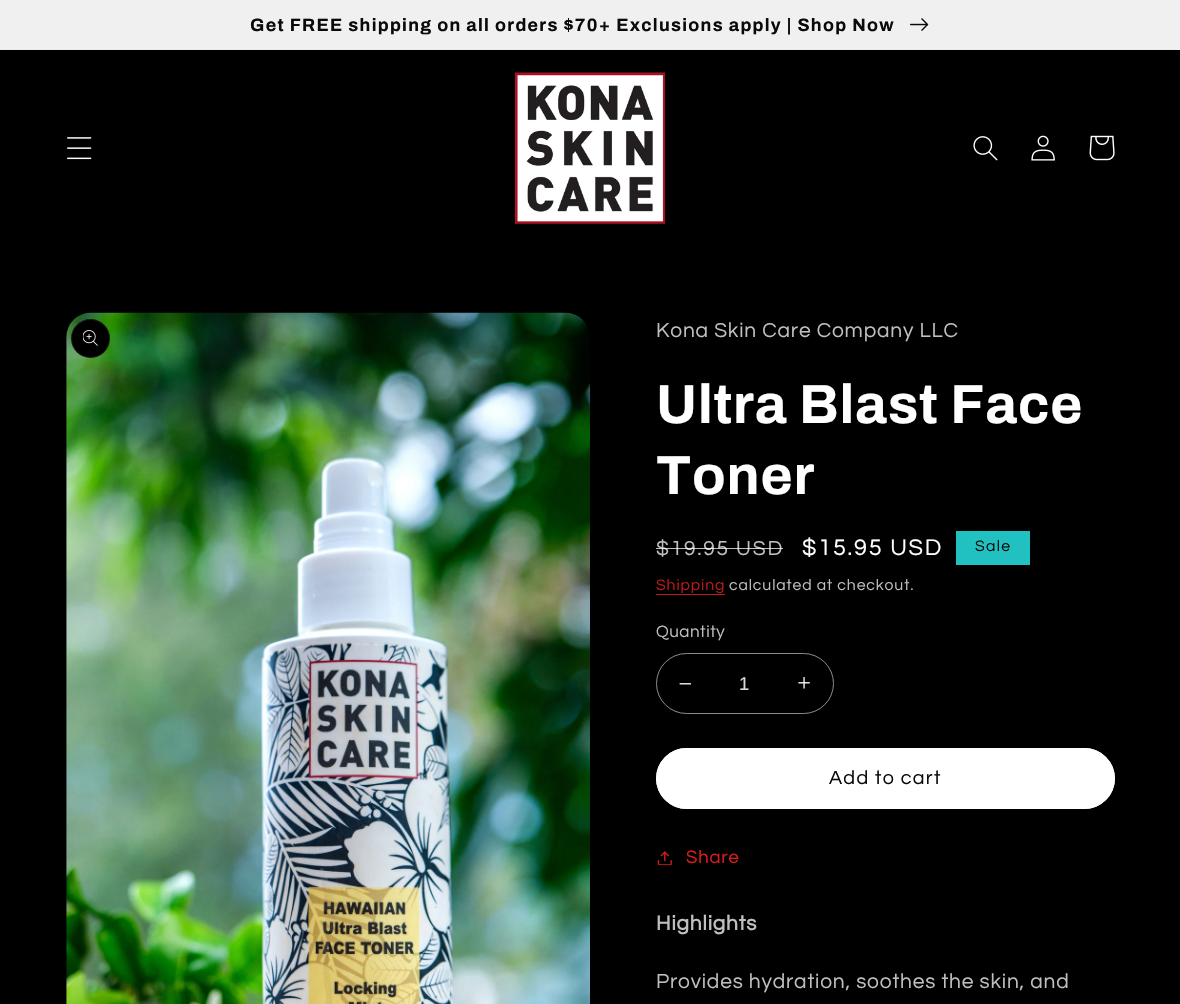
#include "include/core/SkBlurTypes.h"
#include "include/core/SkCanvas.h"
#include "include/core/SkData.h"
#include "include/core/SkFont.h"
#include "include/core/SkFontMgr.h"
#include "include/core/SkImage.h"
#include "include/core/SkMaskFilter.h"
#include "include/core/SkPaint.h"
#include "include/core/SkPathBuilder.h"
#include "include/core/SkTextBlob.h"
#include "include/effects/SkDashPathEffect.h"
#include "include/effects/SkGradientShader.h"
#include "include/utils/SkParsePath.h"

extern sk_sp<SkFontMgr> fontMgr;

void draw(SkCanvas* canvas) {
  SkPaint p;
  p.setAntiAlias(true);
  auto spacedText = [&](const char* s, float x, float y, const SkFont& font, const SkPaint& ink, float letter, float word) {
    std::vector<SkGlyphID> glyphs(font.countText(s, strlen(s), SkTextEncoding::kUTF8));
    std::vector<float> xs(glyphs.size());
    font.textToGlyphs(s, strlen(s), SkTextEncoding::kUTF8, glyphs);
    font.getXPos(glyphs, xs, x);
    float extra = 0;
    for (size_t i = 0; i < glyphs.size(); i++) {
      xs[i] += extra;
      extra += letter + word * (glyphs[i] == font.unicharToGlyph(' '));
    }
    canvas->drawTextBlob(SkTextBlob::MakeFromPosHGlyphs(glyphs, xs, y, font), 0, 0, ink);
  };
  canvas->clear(SK_ColorBLACK);
  p.setColor(SkColorSetRGB(235, 235, 235));
  canvas->drawRect(SkRect::MakeLTRB(0, 49, 1180, 50), p);
  p.setColor(SkColorSetRGB(240, 240, 240));
  canvas->drawRect(SkRect::MakeLTRB(0, 0, 1180, 49), p);
  canvas->drawImageRect(SkImages::DeferredFromEncodedData(SkData::MakeFromFileName("images/1.png")), SkRect::MakeLTRB(910, 18, 929, 31), SkSamplingOptions());
  canvas->drawImageRect(SkImages::DeferredFromEncodedData(SkData::MakeFromFileName("images/2.png")), SkRect::MakeLTRB(67, 137, 92, 160), SkSamplingOptions());
  canvas->drawImageRect(SkImages::DeferredFromEncodedData(SkData::MakeFromFileName("images/3.png")), SkRect::MakeLTRB(515, 72, 665, 224), SkSamplingOptions());
  canvas->drawImageRect(SkImages::DeferredFromEncodedData(SkData::MakeFromFileName("images/4.png")), SkRect::MakeLTRB(973, 136, 998, 161), SkSamplingOptions());
  canvas->drawImageRect(SkImages::DeferredFromEncodedData(SkData::MakeFromFileName("images/5.png")), SkRect::MakeLTRB(1031, 135, 1055, 161), SkSamplingOptions());
  canvas->drawImageRect(SkImages::DeferredFromEncodedData(SkData::MakeFromFileName("images/6.png")), SkRect::MakeLTRB(1089, 135, 1115, 161), SkSamplingOptions());
  canvas->drawImageRect(SkImages::DeferredFromEncodedData(SkData::MakeFromFileName("images/7.png")), SkRect::MakeLTRB(66, 312, 590, 1004), SkSamplingOptions());
  p.setColor(SK_ColorBLACK);
  canvas->drawCircle(90.5f, 338.5f, 19.5f, p);
  p.setStyle(SkPaint::kStroke_Style);
  p.setStrokeWidth(1);
  p.setColor(SkColorSetARGB(26, 255, 255, 255));
  canvas->drawCircle(90.5f, 338.5f, 19, p);
  canvas->drawImageRect(SkImages::DeferredFromEncodedData(SkData::MakeFromFileName("images/8.png")), SkRect::MakeLTRB(83, 330, 98, 346), SkSamplingOptions());
  p.setStyle(SkPaint::kFill_Style);
  p.setColor(SkColorSetRGB(33, 193, 193));
  canvas->drawRect(SkRect::MakeLTRB(956, 531, 1030, 565), p);
  p.setColor(SkColorSetRGB(188, 25, 25));
  canvas->drawRect(SkRect::MakeLTRB(656, 594, 725, 595), p);
  canvas->drawImageRect(SkImages::DeferredFromEncodedData(SkData::MakeFromFileName("images/9.png")), SkRect::MakeLTRB(679, 683, 691, 685), SkSamplingOptions());
  canvas->drawImageRect(SkImages::DeferredFromEncodedData(SkData::MakeFromFileName("images/10.png")), SkRect::MakeLTRB(798, 677, 810, 689), SkSamplingOptions());
  p.setStyle(SkPaint::kStroke_Style);
  p.setColor(SkColorSetRGB(140, 140, 140));
  canvas->drawRoundRect(SkRect::MakeLTRB(656.5f, 653.5f, 833.5f, 713.5f), 30, 30, p);
  p.setStyle(SkPaint::kFill_Style);
  p.setColor(SK_ColorWHITE);
  canvas->drawRoundRect(SkRect::MakeLTRB(656, 748, 1115, 809), 30.5f, 30.5f, p);
  p.setStyle(SkPaint::kStroke_Style);
  canvas->drawRoundRect(SkRect::MakeLTRB(656.5f, 748.5f, 1114.5f, 808.5f), 30, 30, p);
  canvas->drawImageRect(SkImages::DeferredFromEncodedData(SkData::MakeFromFileName("images/11.png")), SkRect::MakeLTRB(657, 851, 672, 865), SkSamplingOptions());
  SkFont font1(fontMgr->matchFamilyStyle("Archivo", SkFontStyle::Bold()), 17.9f);
  font1.setSubpixel(true);
  p.setStyle(SkPaint::kFill_Style);
  p.setColor(SkColorSetRGB(10, 10, 9));
  spacedText("Get FREE shipping on all orders $70+ Exclusions apply | Shop Now", 250, 31, font1, p, 1.3f, 0);
  SkFont font2(fontMgr->matchFamilyStyle("Questrial", SkFontStyle::Normal()), 21);
  font2.setSubpixel(true);
  p.setColor(SkColorSetRGB(191, 191, 191));
  spacedText("Kona Skin Care Company LLC", 656, 337, font2, p, 0.8f, 0);
  SkFont font3(fontMgr->matchFamilyStyle("Archivo", SkFontStyle::Bold()), 55);
  font3.setSubpixel(true);
  p.setColor(SK_ColorWHITE);
  spacedText("Ultra Blast Face", 656, 423, font3, p, 0.8f, 0);
  spacedText("Toner", 656, 494, font3, p, 0.8f, 0);
  p.setColor(SkColorSetRGB(191, 191, 191));
  spacedText("$19.95 USD", 656, 555, font2, p, 1.75f, 0);
  p.setColor(SkColorSetARGB(191, 255, 255, 255));
  canvas->drawRect(SkRect::MakeLTRB(656, 548, 783, 549), p);
  SkFont font4(fontMgr->matchFamilyStyle("Questrial", SkFontStyle::Normal()), 23.5f);
  font4.setSubpixel(true);
  p.setColor(SK_ColorWHITE);
  spacedText("$15.95 USD", 802, 555, font4, p, 1.75f, 0);
  SkFont font5(fontMgr->matchFamilyStyle("Questrial", SkFontStyle::Normal()), 15.75f);
  font5.setSubpixel(true);
  p.setColor(SkColorSetRGB(10, 10, 9));
  spacedText("Sale", 975, 551, font5, p, 1.3f, 0);
  p.setColor(SkColorSetRGB(188, 25, 25));
  spacedText("Shipping", 656, 590, font5, p, 0.9f, 0);
  p.setColor(SkColorSetRGB(191, 191, 191));
  spacedText("calculated at checkout.", 729, 590, font5, p, 0.9f, 0);
  SkFont font6(fontMgr->matchFamilyStyle("Questrial", SkFontStyle::Normal()), 17);
  font6.setSubpixel(true);
  spacedText("Quantity", 656, 637, font6, p, 0.5f, 0);
  SkFont font7(fontMgr->matchFamilyStyle("Liberation Sans", SkFontStyle::Normal()), 18.5f);
  font7.setSubpixel(true);
  p.setColor(SkColorSetRGB(217, 217, 217));
  canvas->drawString("1", 739, 690, font7, p);
  SkFont font8(fontMgr->matchFamilyStyle("Questrial", SkFontStyle::Normal()), 19.75f);
  font8.setSubpixel(true);
  p.setColor(SkColorSetRGB(10, 10, 9));
  spacedText("Add to cart", 829, 784, font8, p, 1.3f, 0);
  SkFont font9(fontMgr->matchFamilyStyle("Questrial", SkFontStyle::Normal()), 18.5f);
  font9.setSubpixel(true);
  p.setColor(SkColorSetRGB(221, 29, 29));
  spacedText("Share", 686, 863, font9, p, 0.8f, 0);
  SkFont font10(fontMgr->matchFamilyStyle("Questrial", SkFontStyle::Bold()), 21);
  font10.setSubpixel(true);
  p.setColor(SkColorSetRGB(191, 191, 191));
  spacedText("Highlights", 656, 930, font10, p, 0.8f, 0);
  spacedText("Provides hydration, soothes the skin, and", 656, 988, font2, p, 0.8f, 0);
}
